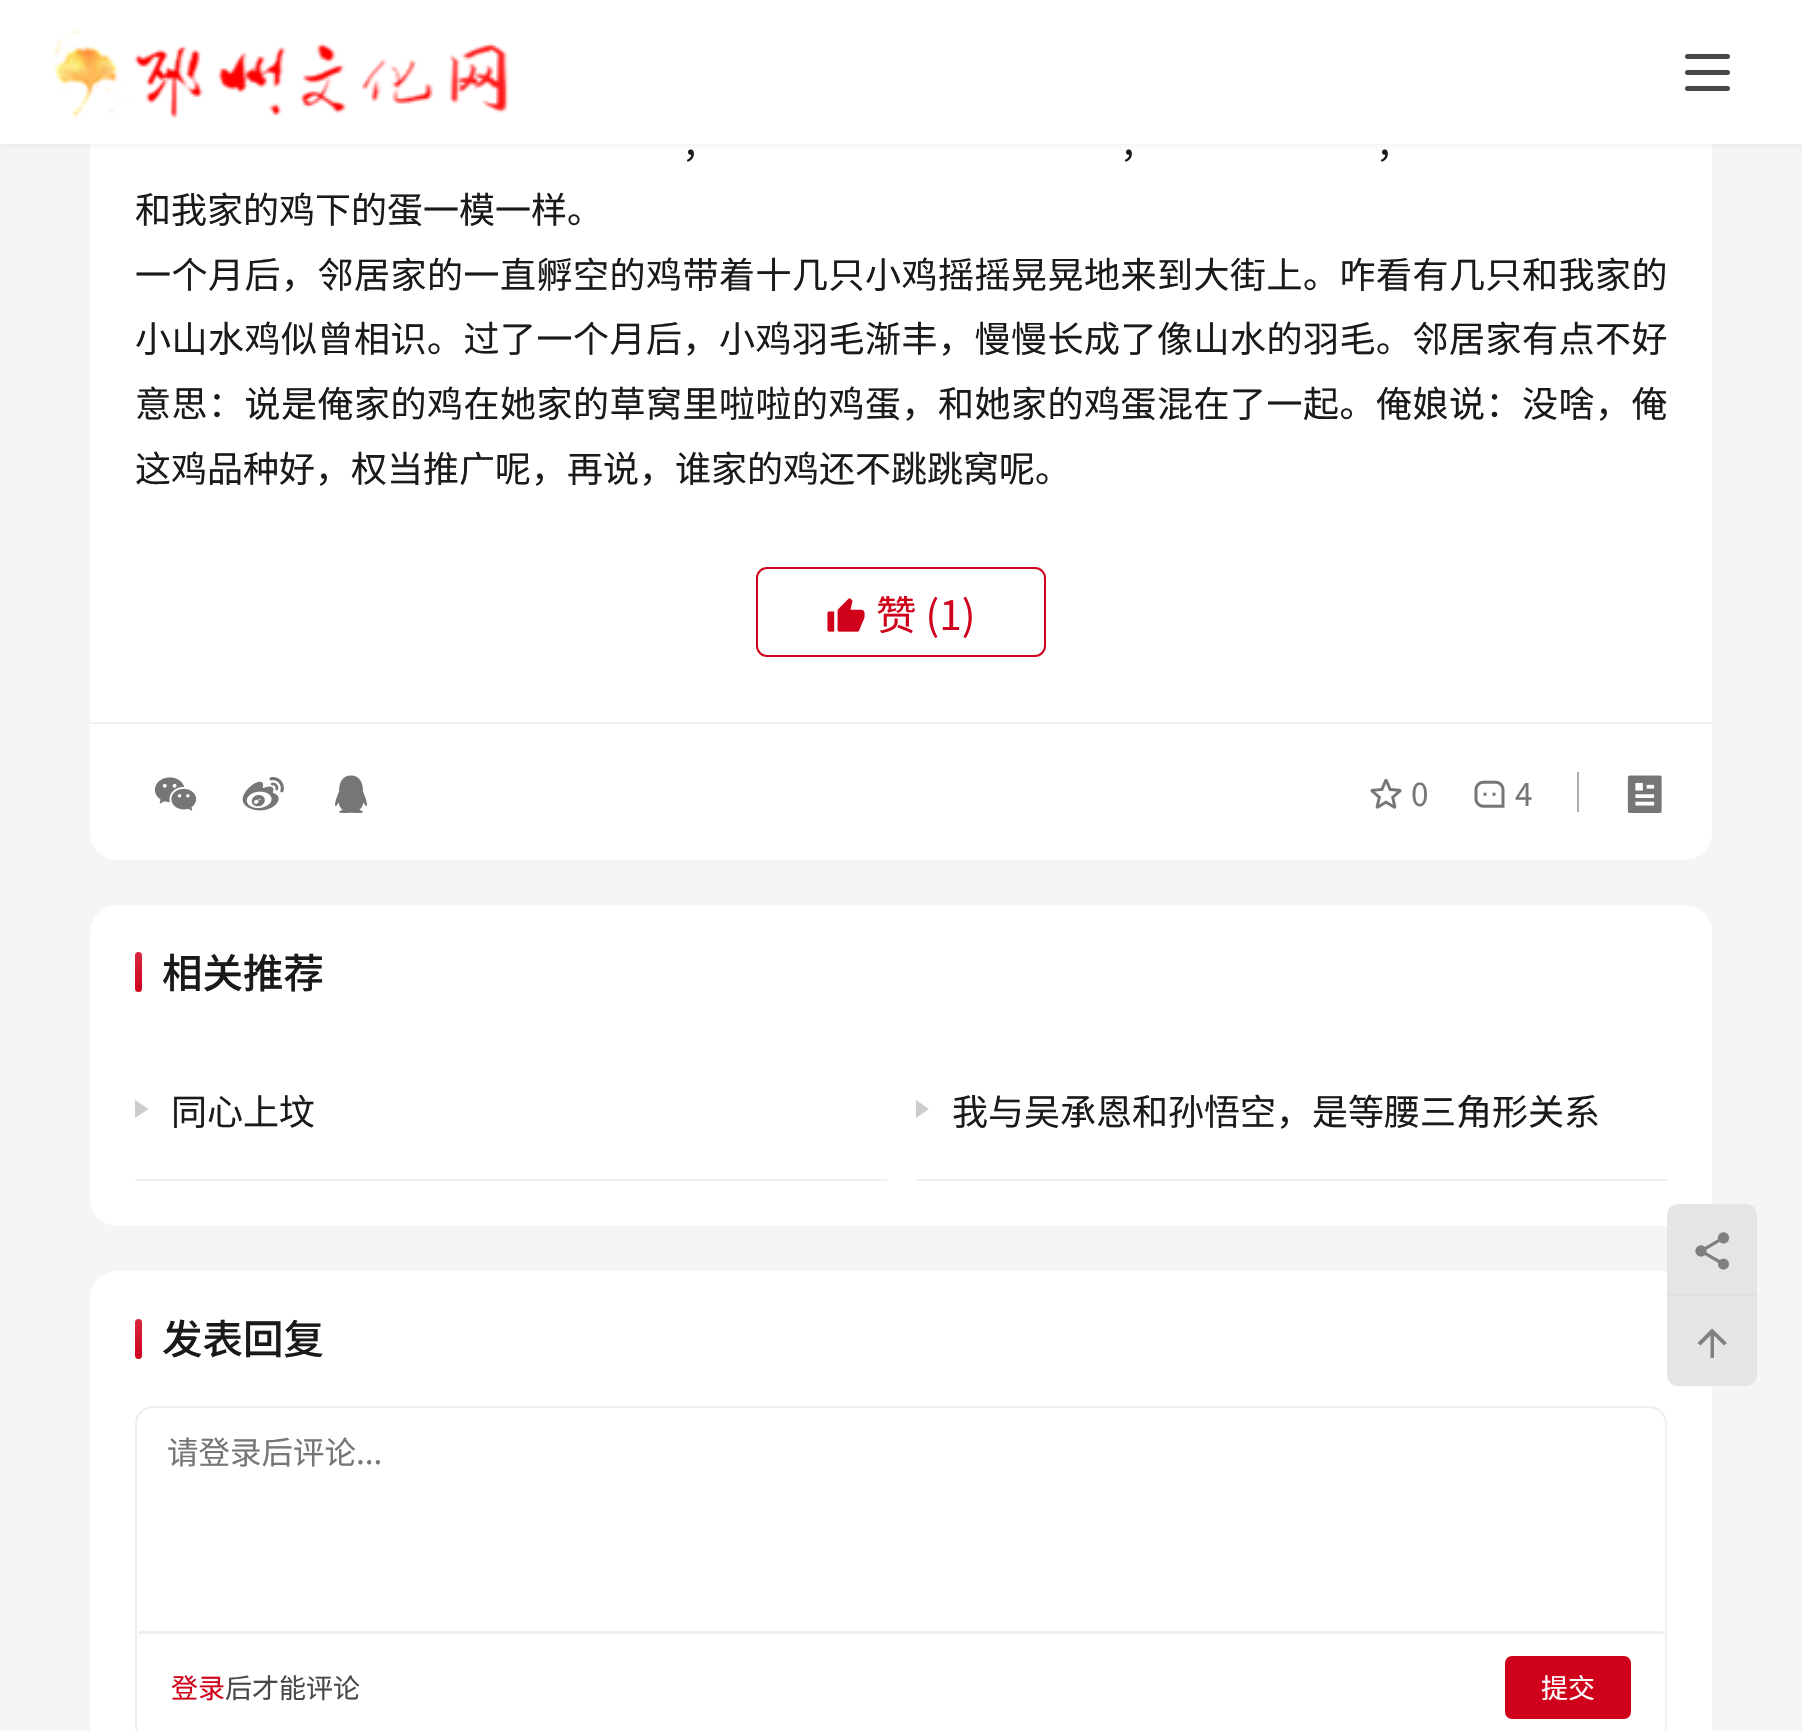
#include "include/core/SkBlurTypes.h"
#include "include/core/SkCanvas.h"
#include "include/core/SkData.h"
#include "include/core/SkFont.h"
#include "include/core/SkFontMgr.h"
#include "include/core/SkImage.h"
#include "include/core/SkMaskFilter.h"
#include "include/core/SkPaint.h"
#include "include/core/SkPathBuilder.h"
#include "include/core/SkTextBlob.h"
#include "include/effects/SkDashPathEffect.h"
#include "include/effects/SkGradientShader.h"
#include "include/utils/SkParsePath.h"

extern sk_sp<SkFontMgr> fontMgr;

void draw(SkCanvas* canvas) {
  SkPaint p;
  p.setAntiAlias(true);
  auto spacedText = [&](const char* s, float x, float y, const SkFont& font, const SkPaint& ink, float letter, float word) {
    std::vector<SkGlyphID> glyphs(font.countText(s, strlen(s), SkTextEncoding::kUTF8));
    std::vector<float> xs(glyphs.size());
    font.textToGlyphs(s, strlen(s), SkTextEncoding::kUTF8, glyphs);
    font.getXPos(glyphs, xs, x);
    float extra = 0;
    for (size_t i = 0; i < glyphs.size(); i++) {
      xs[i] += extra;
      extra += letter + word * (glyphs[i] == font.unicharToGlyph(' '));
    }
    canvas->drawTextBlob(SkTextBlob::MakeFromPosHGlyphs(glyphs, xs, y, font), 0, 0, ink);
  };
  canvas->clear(SkColorSetRGB(245, 245, 245));
  p.setColor(SK_ColorWHITE);
  canvas->drawRoundRect(SkRect::MakeLTRB(90, -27, 1712, 860), 27, 27, p);
  p.setColor(SkColorSetARGB(15, 26, 26, 26));
  p.setMaskFilter(SkMaskFilter::MakeBlur(kNormal_SkBlurStyle, 3.5f));
  canvas->drawRect(SkRect::MakeLTRB(-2, -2, 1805, 146), p);
  p.setMaskFilter(nullptr);
  p.setColor(SK_ColorWHITE);
  canvas->drawRect(SkRect::MakeLTRB(0, 0, 1802, 144), p);
  canvas->drawImageRect(SkImages::DeferredFromEncodedData(SkData::MakeFromFileName("images/1.png")), SkRect::MakeLTRB(51, 29, 509, 118), SkSamplingOptions());
  p.setColor(SkColorSetRGB(72, 72, 72));
  canvas->drawRoundRect(SkRect::MakeLTRB(1685, 54, 1730, 59), 2.5f, 2.5f, p);
  canvas->drawRoundRect(SkRect::MakeLTRB(1685, 70, 1730, 75), 2.5f, 2.5f, p);
  canvas->drawRoundRect(SkRect::MakeLTRB(1685, 86, 1730, 91), 2.5f, 2.5f, p);
  p.setStyle(SkPaint::kStroke_Style);
  p.setStrokeWidth(2);
  p.setColor(SkColorSetRGB(208, 2, 27));
  canvas->drawRoundRect(SkRect::MakeLTRB(757, 568, 1045, 656), 10, 10, p);
  canvas->drawImageRect(SkImages::DeferredFromEncodedData(SkData::MakeFromFileName("images/2.png")), SkRect::MakeLTRB(827, 598, 865, 632), SkSamplingOptions());
  p.setStyle(SkPaint::kFill_Style);
  p.setColor(SkColorSetRGB(242, 242, 242));
  canvas->drawRect(SkRect::MakeLTRB(90, 722, 1712, 724), p);
  canvas->drawImageRect(SkImages::DeferredFromEncodedData(SkData::MakeFromFileName("images/3.png")), SkRect::MakeLTRB(154, 777, 197, 811), SkSamplingOptions());
  canvas->drawImageRect(SkImages::DeferredFromEncodedData(SkData::MakeFromFileName("images/4.png")), SkRect::MakeLTRB(242, 777, 284, 811), SkSamplingOptions());
  canvas->drawImageRect(SkImages::DeferredFromEncodedData(SkData::MakeFromFileName("images/5.png")), SkRect::MakeLTRB(335, 775, 367, 813), SkSamplingOptions());
  canvas->drawImageRect(SkImages::DeferredFromEncodedData(SkData::MakeFromFileName("images/6.png")), SkRect::MakeLTRB(1370, 779, 1402, 809), SkSamplingOptions());
  canvas->drawImageRect(SkImages::DeferredFromEncodedData(SkData::MakeFromFileName("images/7.png")), SkRect::MakeLTRB(1474, 780, 1505, 808), SkSamplingOptions());
  p.setColor(SkColorSetRGB(173, 173, 173));
  canvas->drawRect(SkRect::MakeLTRB(1577, 772, 1579, 812), p);
  canvas->drawImageRect(SkImages::DeferredFromEncodedData(SkData::MakeFromFileName("images/8.png")), SkRect::MakeLTRB(1627, 775, 1662, 813), SkSamplingOptions());
  p.setColor(SK_ColorWHITE);
  canvas->drawRoundRect(SkRect::MakeLTRB(90, 905, 1712, 1226), 27, 27, p);
  p.setColor(SkColorSetRGB(208, 2, 27));
  canvas->drawRoundRect(SkRect::MakeLTRB(135, 952, 142, 992), 3.5f, 3.5f, p);
  {
    const SkColor colors[] = {SkColorSetARGB(38, 255, 255, 255), SkColorSetARGB(0, 255, 255, 255)};
    const float stops[] = {0, 1};
    const SkPoint ends[] = {{138, 952}, {138, 992}};
    p.setShader(SkGradientShader::MakeLinear(ends, colors, stops, 2, SkTileMode::kClamp));
    p.setAlpha(255);
  }
  canvas->drawRoundRect(SkRect::MakeLTRB(135, 952, 142, 992), 3.5f, 3.5f, p);
  p.setShader(nullptr);
  p.setColor(SkColorSetRGB(239, 239, 239));
  canvas->drawRect(SkRect::MakeLTRB(135, 1179, 887, 1181), p);
  p.setColor(SkColorSetRGB(204, 204, 204));
  canvas->drawPath(SkPathBuilder().moveTo(135, 1118).lineTo(135, 1100).lineTo(148.5f, 1109).close().detach(), p);
  p.setColor(SkColorSetRGB(239, 239, 239));
  canvas->drawRect(SkRect::MakeLTRB(916, 1179, 1667, 1181), p);
  p.setColor(SkColorSetRGB(204, 204, 204));
  canvas->drawPath(SkPathBuilder().moveTo(916, 1118).lineTo(916, 1100).lineTo(929, 1109).close().detach(), p);
  p.setColor(SK_ColorWHITE);
  canvas->drawRoundRect(SkRect::MakeLTRB(90, 1271, 1712, 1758), 27, 27, p);
  p.setColor(SkColorSetRGB(208, 2, 27));
  canvas->drawRoundRect(SkRect::MakeLTRB(135, 1319, 142, 1359), 3.5f, 3.5f, p);
  {
    const SkColor colors[] = {SkColorSetARGB(38, 255, 255, 255), SkColorSetARGB(0, 255, 255, 255)};
    const float stops[] = {0, 1};
    const SkPoint ends[] = {{138, 1319}, {138, 1359}};
    p.setShader(SkGradientShader::MakeLinear(ends, colors, stops, 2, SkTileMode::kClamp));
    p.setAlpha(255);
  }
  canvas->drawRoundRect(SkRect::MakeLTRB(135, 1319, 142, 1359), 3.5f, 3.5f, p);
  p.setStyle(SkPaint::kStroke_Style);
  p.setShader(nullptr);
  p.setColor(SkColorSetRGB(239, 239, 239));
  canvas->drawRoundRect(SkRect::MakeLTRB(136, 1407, 1666, 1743), 17, 17, p);
  p.setStyle(SkPaint::kFill_Style);
  canvas->drawPath(SkPathBuilder().moveTo(1665, 1634).lineTo(137, 1634).lineTo(140, 1631).lineTo(1663, 1631).close().detach(), p);
  p.setColor(SkColorSetRGB(208, 2, 27));
  canvas->drawRoundRect(SkRect::MakeLTRB(1506, 1657, 1630, 1718), 6, 6, p);
  p.setStyle(SkPaint::kStroke_Style);
  canvas->drawRoundRect(SkRect::MakeLTRB(1506, 1657, 1630, 1718), 6, 6, p);
  p.setStyle(SkPaint::kFill_Style);
  p.setColor(SkColorSetRGB(245, 245, 245));
  canvas->drawPath(SkPathBuilder().moveTo(1678, 1204).lineTo(1746, 1204).cubicTo(1752, 1204, 1757, 1209, 1757, 1215).lineTo(1757, 1294).lineTo(1667, 1294).lineTo(1667, 1215).cubicTo(1667, 1209, 1672, 1204, 1678, 1204).close().detach(), p);
  p.setColor(SkColorSetARGB(18, 26, 26, 26));
  canvas->drawPath(SkPathBuilder().moveTo(1678, 1204).lineTo(1746, 1204).cubicTo(1752, 1204, 1757, 1209, 1757, 1215).lineTo(1757, 1294).lineTo(1667, 1294).lineTo(1667, 1215).cubicTo(1667, 1209, 1672, 1204, 1678, 1204).close().detach(), p);
  canvas->drawImageRect(SkImages::DeferredFromEncodedData(SkData::MakeFromFileName("images/9.png")), SkRect::MakeLTRB(1695, 1232, 1730, 1270), SkSamplingOptions());
  p.setColor(SkColorSetRGB(245, 245, 245));
  canvas->drawPath(SkPathBuilder().moveTo(1667, 1294).lineTo(1757, 1294).lineTo(1757, 1375).cubicTo(1757, 1381, 1752, 1386, 1746, 1386).lineTo(1678, 1386).cubicTo(1672, 1386, 1667, 1381, 1667, 1375).close().detach(), p);
  p.setColor(SkColorSetRGB(223, 223, 223));
  canvas->drawRect(SkRect::MakeLTRB(1667, 1294, 1757, 1296), p);
  p.setColor(SkColorSetARGB(18, 26, 26, 26));
  canvas->drawPath(SkPathBuilder().moveTo(1667, 1296).lineTo(1757, 1296).lineTo(1757, 1375).cubicTo(1757, 1381, 1752, 1386, 1746, 1386).lineTo(1678, 1386).cubicTo(1672, 1386, 1667, 1381, 1667, 1375).close().detach(), p);
  p.setColor(SkColorSetRGB(128, 128, 128));
  canvas->drawPath(SkPathBuilder().moveTo(1714, 1335.5f).lineTo(1714, 1358).lineTo(1710.5f, 1358).lineTo(1710.5f, 1335.5f).lineTo(1700.5f, 1345.5f).lineTo(1697.5f, 1343).lineTo(1712, 1328.5f).lineTo(1727, 1343).lineTo(1724, 1345.5f).close().detach(), p);
  SkFont font1(fontMgr->matchFamilyStyle("Noto Sans CJK SC", SkFontStyle::Normal()), 36);
  font1.setSubpixel(true);
  p.setColor(SkColorSetRGB(26, 26, 26));
  spacedText("，", 682, 158, font1, p, 0.5f, 0);
  spacedText("，", 1120, 158, font1, p, 0.5f, 0);
  spacedText("，", 1376, 158, font1, p, 0.5f, 0);
  canvas->drawString("和我家的鸡下的蛋一模一样。", 135, 223, font1, p);
  spacedText("一个月后，邻居家的一直孵空的鸡带着十几只小鸡摇摇晃晃地来到大街上。咋看有几只和我家的", 135, 288, font1, p, 0.5f, 0);
  spacedText("小山水鸡似曾相识。过了一个月后，小鸡羽毛渐丰，慢慢长成了像山水的羽毛。邻居家有点不好", 135, 352, font1, p, 0.5f, 0);
  spacedText("意思：说是俺家的鸡在她家的草窝里啦啦的鸡蛋，和她家的鸡蛋混在了一起。俺娘说：没啥，俺", 135, 417, font1, p, 0.5f, 0);
  canvas->drawString("这鸡品种好，权当推广呢，再说，谁家的鸡还不跳跳窝呢。", 135, 482, font1, p);
  SkFont font2(fontMgr->matchFamilyStyle("Noto Sans CJK SC", SkFontStyle::Normal()), 40.5f);
  font2.setSubpixel(true);
  p.setColor(SkColorSetRGB(208, 2, 27));
  canvas->drawString("赞 (1)", 876, 630, font2, p);
  SkFont font3(fontMgr->matchFamilyStyle("Noto Sans CJK SC", SkFontStyle::Normal()), 31.5f);
  font3.setSubpixel(true);
  p.setColor(SkColorSetRGB(118, 118, 118));
  canvas->drawString("0", 1411, 806, font3, p);
  canvas->drawString("4", 1515, 806, font3, p);
  SkFont font4(fontMgr->matchFamilyStyle("Noto Sans CJK SC", SkFontStyle(500, SkFontStyle::kNormal_Width, SkFontStyle::kUpright_Slant)), 40.5f);
  font4.setSubpixel(true);
  p.setColor(SkColorSetRGB(26, 26, 26));
  canvas->drawString("相关推荐", 162, 988, font4, p);
  canvas->drawString("同心上坟", 171, 1125, font1, p);
  canvas->drawString("我与吴承恩和孙悟空，是等腰三角形关系", 952, 1125, font1, p);
  canvas->drawString("发表回复", 162, 1354, font4, p);
  p.setColor(SkColorSetRGB(118, 118, 118));
  canvas->drawString("请登录后评论...", 167, 1464, font3, p);
  SkFont font5(fontMgr->matchFamilyStyle("Noto Sans CJK SC", SkFontStyle::Normal()), 27);
  font5.setSubpixel(true);
  p.setColor(SkColorSetRGB(208, 2, 27));
  canvas->drawString("登录", 171, 1698, font5, p);
  p.setColor(SkColorSetRGB(72, 72, 72));
  canvas->drawString("后才能评论", 225, 1698, font5, p);
  p.setColor(SK_ColorWHITE);
  canvas->drawString("提交", 1541, 1698, font5, p);
}
